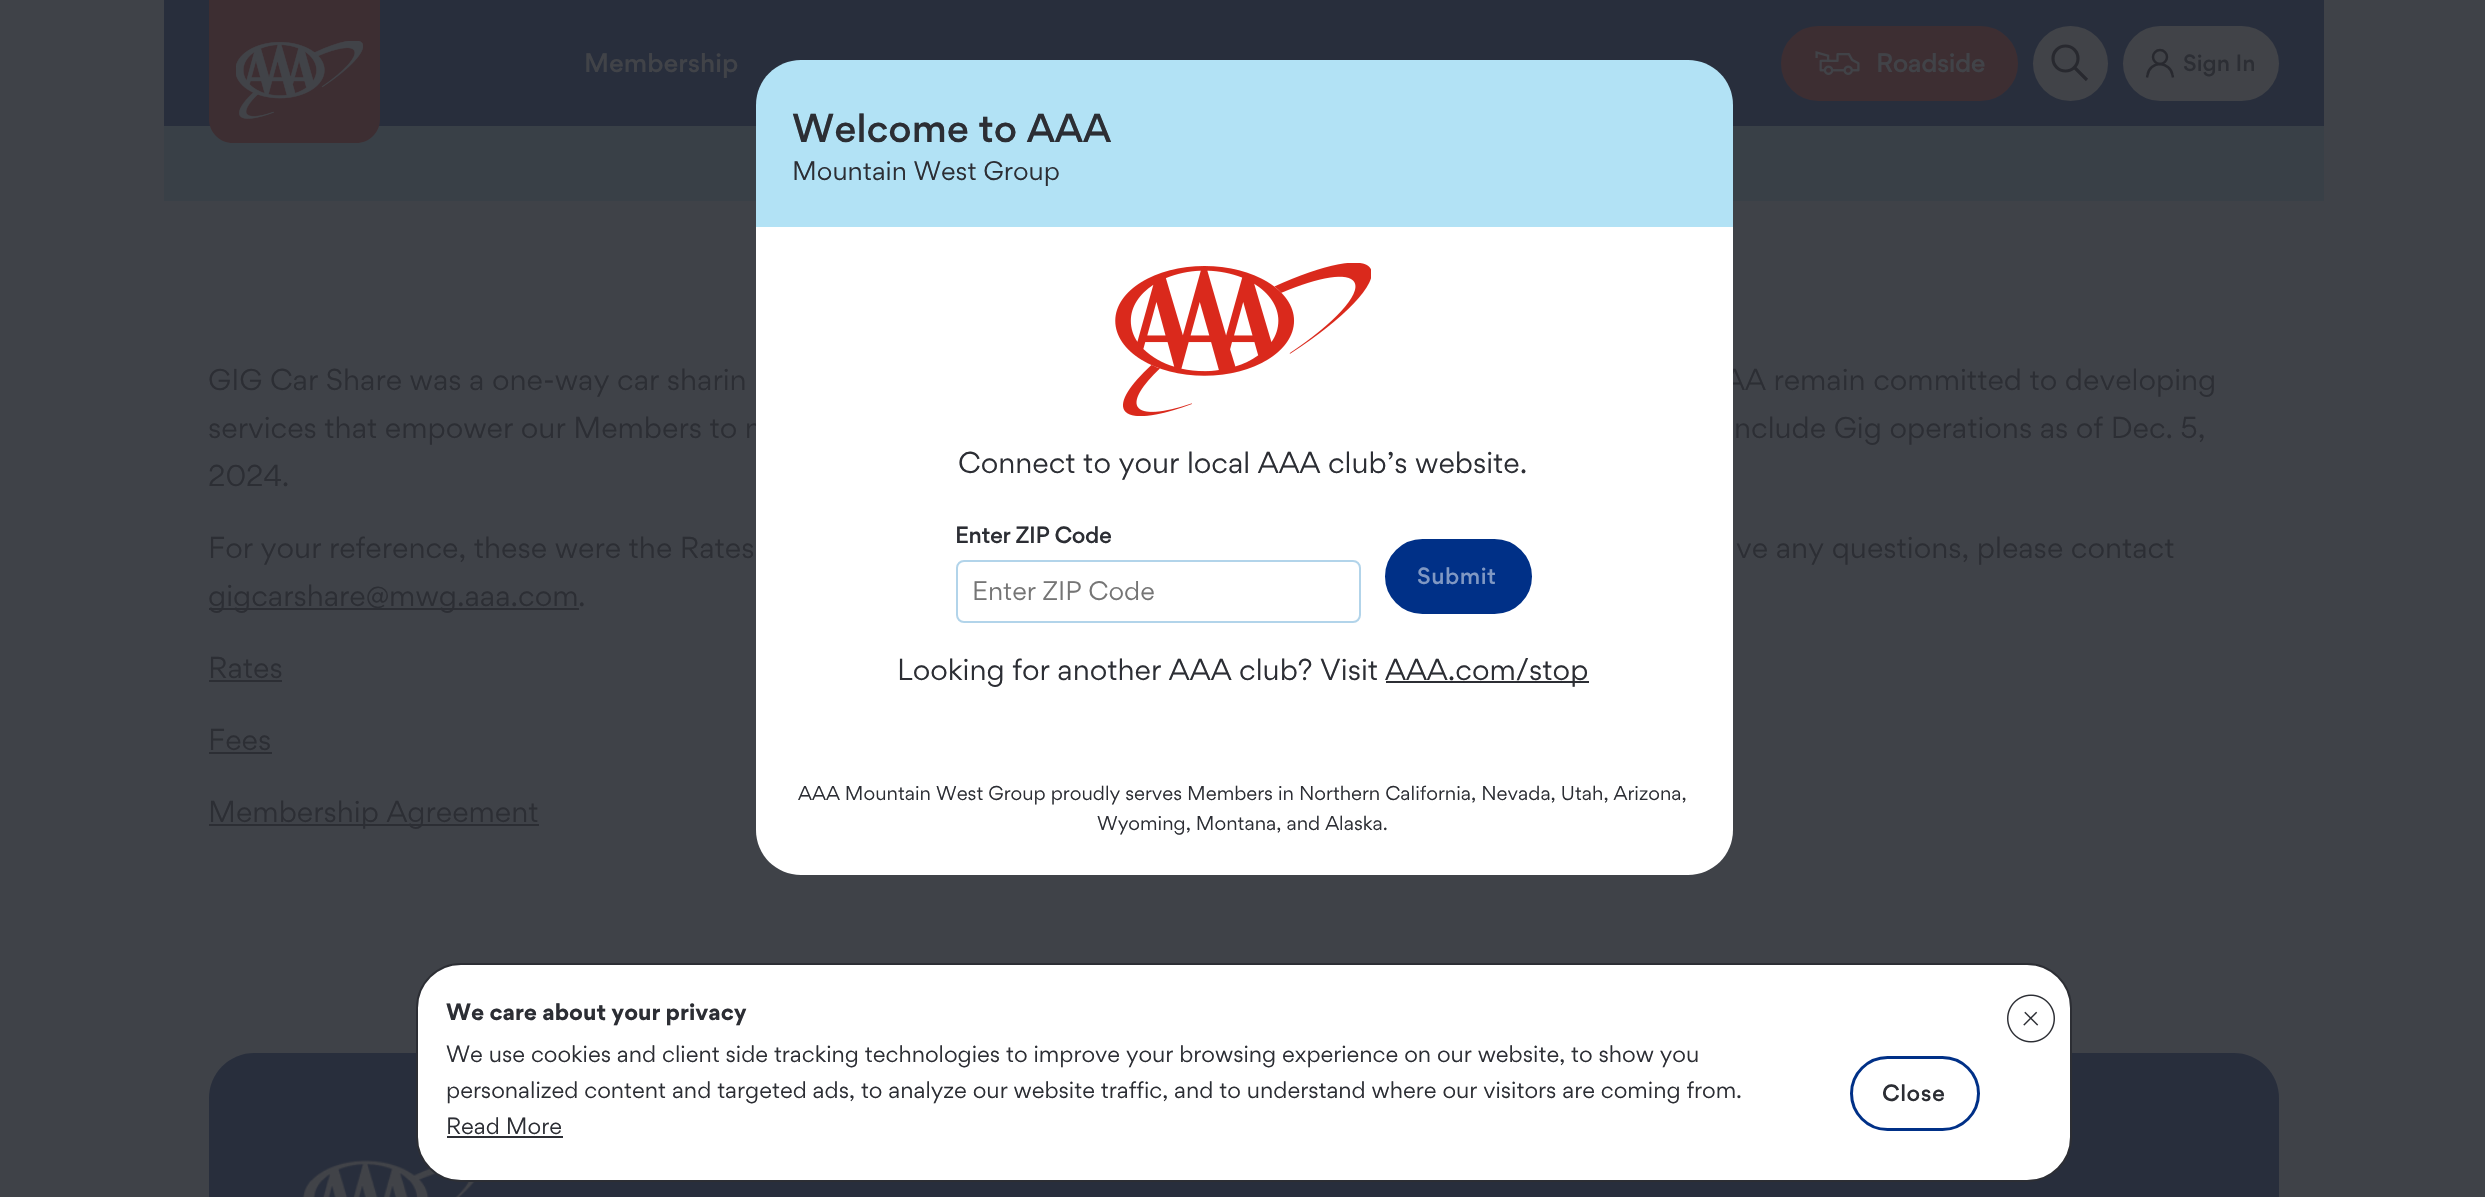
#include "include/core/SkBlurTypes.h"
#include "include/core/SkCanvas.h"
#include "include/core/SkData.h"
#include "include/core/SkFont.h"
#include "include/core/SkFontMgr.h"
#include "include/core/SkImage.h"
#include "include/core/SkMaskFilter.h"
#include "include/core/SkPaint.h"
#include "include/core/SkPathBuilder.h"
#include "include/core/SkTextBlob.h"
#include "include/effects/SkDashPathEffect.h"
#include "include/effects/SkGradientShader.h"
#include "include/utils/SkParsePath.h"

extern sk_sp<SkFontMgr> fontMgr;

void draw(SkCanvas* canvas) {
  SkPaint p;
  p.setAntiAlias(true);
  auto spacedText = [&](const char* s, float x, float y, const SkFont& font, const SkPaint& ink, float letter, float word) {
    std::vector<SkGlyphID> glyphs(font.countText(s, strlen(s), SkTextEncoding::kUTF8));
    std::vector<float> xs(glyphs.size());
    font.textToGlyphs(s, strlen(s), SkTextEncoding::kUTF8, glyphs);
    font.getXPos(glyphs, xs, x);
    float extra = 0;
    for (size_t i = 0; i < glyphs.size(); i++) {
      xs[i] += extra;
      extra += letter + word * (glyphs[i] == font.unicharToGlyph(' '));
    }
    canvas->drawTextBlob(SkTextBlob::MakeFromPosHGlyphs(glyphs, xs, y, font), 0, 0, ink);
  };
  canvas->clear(SkColorSetRGB(63, 66, 72));
  p.setColor(SkColorSetRGB(40, 46, 60));
  canvas->drawRect(SkRect::MakeLTRB(164, 0, 2324, 126), p);
  p.setColor(SkColorSetRGB(57, 64, 71));
  canvas->drawRect(SkRect::MakeLTRB(164, 126, 2324, 201), p);
  p.setColor(SkColorSetRGB(61, 46, 50));
  canvas->drawPath(SkPathBuilder().moveTo(209, 0).lineTo(380, 0).lineTo(380, 119).cubicTo(380, 132.5f, 369.5f, 143, 356, 143).lineTo(233, 143).cubicTo(219.5f, 143, 209, 132.5f, 209, 119).close().detach(), p);
  canvas->drawImageRect(SkImages::DeferredFromEncodedData(SkData::MakeFromFileName("images/1.png")), SkRect::MakeLTRB(236, 41, 363, 119), SkSamplingOptions());
  canvas->drawRoundRect(SkRect::MakeLTRB(1782.5f, 27.5f, 2016.5f, 99.5f), 36, 36, p);
  p.setStyle(SkPaint::kStroke_Style);
  p.setStrokeWidth(3);
  canvas->drawRoundRect(SkRect::MakeLTRB(1782.5f, 27.5f, 2016.5f, 99.5f), 36, 36, p);
  canvas->drawImageRect(SkImages::DeferredFromEncodedData(SkData::MakeFromFileName("images/2.png")), SkRect::MakeLTRB(1815, 51, 1860, 75), SkSamplingOptions());
  p.setStyle(SkPaint::kFill_Style);
  p.setColor(SkColorSetRGB(65, 67, 72));
  canvas->drawCircle(2070.5f, 63.5f, 37.5f, p);
  p.setStyle(SkPaint::kStroke_Style);
  p.setStrokeWidth(3.2f);
  p.setColor(SkColorSetRGB(40, 41, 47));
  canvas->drawCircle(2065.5f, 58.5f, 12.5f, p);
  canvas->drawPath(SkPathBuilder().moveTo(2087, 80).lineTo(2074, 67).detach(), p);
  p.setStyle(SkPaint::kFill_Style);
  p.setColor(SkColorSetRGB(65, 67, 72));
  canvas->drawRoundRect(SkRect::MakeLTRB(2123, 26, 2279, 101), 37.5f, 37.5f, p);
  p.setStyle(SkPaint::kStroke_Style);
  p.setStrokeWidth(2.5f);
  p.setColor(SkColorSetRGB(40, 41, 47));
  canvas->drawCircle(2160, 57, 7, p);
  canvas->drawPath(SkPathBuilder().moveTo(2147, 77.5f).lineTo(2147.5f, 75).cubicTo(2148.5f, 68.5f, 2154, 64, 2160, 64).cubicTo(2166, 64.5f, 2171.5f, 68.5f, 2172.5f, 75).lineTo(2173, 77.5f).detach(), p);
  p.setStyle(SkPaint::kFill_Style);
  p.setColor(SkColorSetRGB(178, 226, 245));
  canvas->drawPath(SkPathBuilder().moveTo(801, 60).lineTo(1688, 60).cubicTo(1713, 60, 1733, 80, 1733, 105).lineTo(1733, 227).lineTo(756, 227).lineTo(756, 105).cubicTo(756, 80, 776, 60, 801, 60).close().detach(), p);
  p.setColor(SkColorSetRGB(44, 46, 52));
  canvas->drawRect(SkRect::MakeLTRB(209, 608, 579, 610), p);
  canvas->drawRect(SkRect::MakeLTRB(209, 680, 282, 682), p);
  canvas->drawRect(SkRect::MakeLTRB(209, 752, 272, 754), p);
  canvas->drawRect(SkRect::MakeLTRB(209, 824, 539, 826), p);
  p.setColor(SkColorSetRGB(40, 46, 60));
  canvas->drawRoundRect(SkRect::MakeLTRB(209, 1053, 2279, 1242), 45, 45, p);
  canvas->drawImageRect(SkImages::DeferredFromEncodedData(SkData::MakeFromFileName("images/5.png")), SkRect::MakeLTRB(302, 1160, 475, 1197), SkSamplingOptions());
  p.setColor(SK_ColorWHITE);
  canvas->drawRoundRect(SkRect::MakeLTRB(417, 964, 2071, 1181), 44, 44, p);
  p.setStyle(SkPaint::kStroke_Style);
  p.setStrokeWidth(2);
  p.setColor(SkColorSetRGB(44, 46, 52));
  canvas->drawRoundRect(SkRect::MakeLTRB(417, 964, 2071, 1181), 44, 44, p);
  p.setStyle(SkPaint::kFill_Style);
  canvas->drawRect(SkRect::MakeLTRB(447, 1136, 563, 1138), p);
  p.setStyle(SkPaint::kStroke_Style);
  p.setStrokeWidth(3);
  p.setColor(SkColorSetRGB(0, 48, 135));
  canvas->drawRoundRect(SkRect::MakeLTRB(1851.5f, 1057.5f, 1978.5f, 1129.5f), 36, 36, p);
  canvas->drawImageRect(SkImages::DeferredFromEncodedData(SkData::MakeFromFileName("images/4.png")), SkRect::MakeLTRB(2007, 994, 2055, 1043), SkSamplingOptions());
  SkFont font1(fontMgr->matchFamilyStyle("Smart", SkFontStyle(500, SkFontStyle::kNormal_Width, SkFontStyle::kUpright_Slant)), 24);
  font1.setSubpixel(true);
  p.setStyle(SkPaint::kFill_Style);
  p.setColor(SkColorSetRGB(65, 67, 72));
  canvas->drawString("Membership", 584, 72, font1, p);
  spacedText("Roadside", 1876, 72, font1, p, -0.5f, 0);
  SkFont font2(fontMgr->matchFamilyStyle("Smart", SkFontStyle(500, SkFontStyle::kNormal_Width, SkFontStyle::kUpright_Slant)), 21);
  font2.setSubpixel(true);
  p.setColor(SkColorSetRGB(44, 46, 52));
  canvas->drawString("Sign In", 2183, 71, font2, p);
  SkFont font3(fontMgr->matchFamilyStyle("Smart", SkFontStyle(500, SkFontStyle::kNormal_Width, SkFontStyle::kUpright_Slant)), 36);
  font3.setSubpixel(true);
  canvas->drawString("Welcome to AAA", 792, 142, font3, p);
  SkFont font4(fontMgr->matchFamilyStyle("Smart", SkFontStyle::Normal()), 24);
  font4.setSubpixel(true);
  canvas->drawString("Mountain West Group", 792, 180, font4, p);
  SkFont font5(fontMgr->matchFamilyStyle("Smart", SkFontStyle::Normal()), 27);
  font5.setSubpixel(true);
  canvas->drawString("GIG Car Share was a one-way car sharin", 208, 390, font5, p);
  canvas->drawString("AA remain committed to developing", 1724, 390, font5, p);
  canvas->drawString("services that empower our Members to n", 208, 438, font5, p);
  p.setColor(SK_ColorWHITE);
  canvas->drawPath(SkPathBuilder().moveTo(756, 227).lineTo(1733, 227).lineTo(1733, 830).cubicTo(1733, 855, 1713, 875, 1688, 875).lineTo(801, 875).cubicTo(776, 875, 756, 855, 756, 830).close().detach(), p);
  p.setColor(SkColorSetRGB(44, 46, 52));
  canvas->drawRect(SkRect::MakeLTRB(1386, 681, 1589, 683), p);
  canvas->drawString("AAA.com/stop", 1385, 680, font5, p);
  p.setColor(SkColorSetRGB(0, 48, 135));
  canvas->drawRoundRect(SkRect::MakeLTRB(1386.5f, 540.5f, 1530.5f, 612.5f), 36, 36, p);
  p.setStyle(SkPaint::kStroke_Style);
  canvas->drawRoundRect(SkRect::MakeLTRB(1386.5f, 540.5f, 1530.5f, 612.5f), 36, 36, p);
  p.setStyle(SkPaint::kFill_Style);
  p.setColor(SkColorSetRGB(128, 152, 195));
  spacedText("Submit", 1417, 584, font2, p, 0.5f, 0);
  p.setStyle(SkPaint::kStroke_Style);
  p.setStrokeWidth(2);
  p.setColor(SkColorSetRGB(178, 212, 234));
  canvas->drawRoundRect(SkRect::MakeLTRB(957, 561, 1360, 622), 7, 7, p);
  p.setStyle(SkPaint::kFill_Style);
  p.setColor(SkColorSetRGB(117, 117, 117));
  canvas->drawString("Enter ZIP Code", 972, 600, font4, p);
  p.setColor(SkColorSetRGB(44, 46, 52));
  spacedText("Enter ZIP Code", 955, 543, font2, p, -0.4f, 0);
  SkFont font6(fontMgr->matchFamilyStyle("Smart", SkFontStyle::Normal()), 18);
  font6.setSubpixel(true);
  canvas->drawString("Wyoming, Montana, and Alaska.", 1097, 830, font6, p);
  canvas->drawString("AAA Mountain West Group proudly serves Members in Northern California, Nevada, Utah, Arizona,", 798, 800, font6, p);
  canvas->drawString("Looking for another AAA club? Visit", 897, 680, font5, p);
  canvas->drawString("Connect to your local AAA club’s website.", 958, 473, font5, p);
  canvas->drawImageRect(SkImages::DeferredFromEncodedData(SkData::MakeFromFileName("images/3.png")), SkRect::MakeLTRB(1115, 263, 1371, 416), SkSamplingOptions());
  canvas->drawString("nclude Gig operations as of Dec. 5,", 1734, 438, font5, p);
  canvas->drawString("2024.", 208, 486, font5, p);
  canvas->drawString("For your reference, these were the Rates", 208, 558, font5, p);
  canvas->drawString("ve any questions, please contact", 1736, 558, font5, p);
  canvas->drawString("gigcarshare@mwg.aaa.com", 208, 606, font5, p);
  canvas->drawString(".", 578, 606, font5, p);
  canvas->drawString("Rates", 208, 678, font5, p);
  canvas->drawString("Fees", 208, 750, font5, p);
  canvas->drawString("Membership Agreement", 208, 822, font5, p);
  SkFont font7(fontMgr->matchFamilyStyle("Smart", SkFontStyle::Bold()), 21);
  font7.setSubpixel(true);
  canvas->drawString("We care about your privacy", 446, 1020, font7, p);
  SkFont font8(fontMgr->matchFamilyStyle("Smart", SkFontStyle::Normal()), 21);
  font8.setSubpixel(true);
  canvas->drawString("We use cookies and client side tracking technologies to improve your browsing experience on our website, to show you", 446, 1062, font8, p);
  canvas->drawString("personalized content and targeted ads, to analyze our website traffic, and to understand where our visitors are coming from.", 446, 1098, font8, p);
  canvas->drawString("Read More", 446, 1134, font8, p);
  spacedText("Close", 1882, 1101, font2, p, 0.5f, 0);
}
